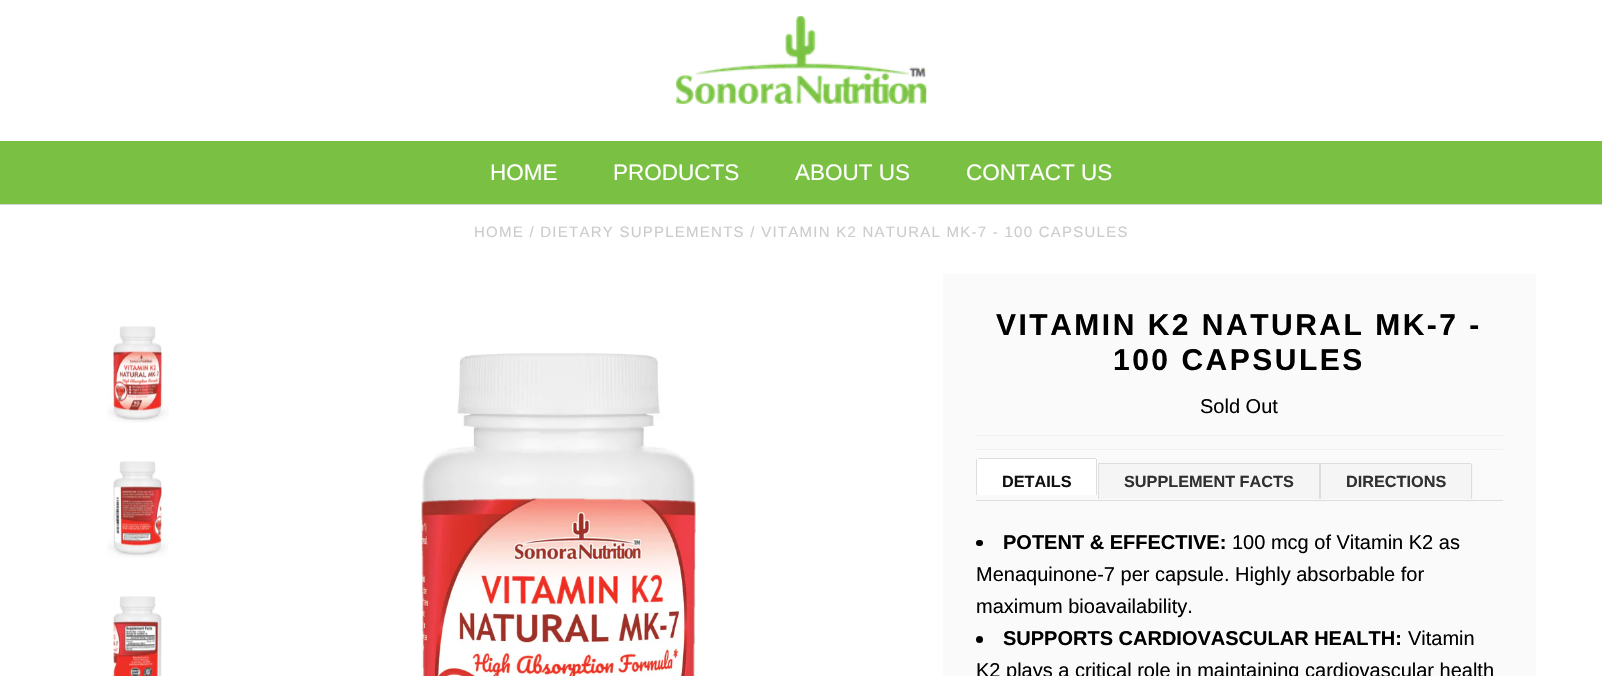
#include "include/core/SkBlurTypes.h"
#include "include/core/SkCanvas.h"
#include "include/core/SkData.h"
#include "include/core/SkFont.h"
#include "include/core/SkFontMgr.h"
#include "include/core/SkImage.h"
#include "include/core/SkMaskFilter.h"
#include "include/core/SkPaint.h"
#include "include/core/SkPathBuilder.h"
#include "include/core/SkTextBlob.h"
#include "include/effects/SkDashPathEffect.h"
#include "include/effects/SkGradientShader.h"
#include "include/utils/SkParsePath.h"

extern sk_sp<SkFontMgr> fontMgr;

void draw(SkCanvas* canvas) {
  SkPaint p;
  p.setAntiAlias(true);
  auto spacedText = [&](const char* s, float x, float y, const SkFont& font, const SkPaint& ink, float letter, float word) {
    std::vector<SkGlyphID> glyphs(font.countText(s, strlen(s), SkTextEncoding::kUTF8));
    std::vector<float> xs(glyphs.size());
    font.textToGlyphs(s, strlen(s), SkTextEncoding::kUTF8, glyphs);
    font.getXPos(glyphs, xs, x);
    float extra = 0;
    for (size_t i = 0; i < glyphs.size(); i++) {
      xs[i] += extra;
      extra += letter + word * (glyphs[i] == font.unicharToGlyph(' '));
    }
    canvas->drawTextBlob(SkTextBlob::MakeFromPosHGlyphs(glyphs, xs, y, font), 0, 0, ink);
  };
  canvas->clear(SK_ColorWHITE);
  canvas->drawImageRect(SkImages::DeferredFromEncodedData(SkData::MakeFromFileName("images/1.png")), SkRect::MakeLTRB(676, 16, 927, 104), SkSamplingOptions());
  p.setColor(SkColorSetRGB(122, 193, 67));
  canvas->drawRect(SkRect::MakeLTRB(0, 141, 1602, 204), p);
  p.setColor(SkColorSetRGB(213, 213, 213));
  canvas->drawRect(SkRect::MakeLTRB(0, 204, 1602, 205), p);
  canvas->drawImageRect(SkImages::DeferredFromEncodedData(SkData::MakeFromFileName("images/2.png")), SkRect::MakeLTRB(107, 326, 169, 423), SkSamplingOptions());
  canvas->drawImageRect(SkImages::DeferredFromEncodedData(SkData::MakeFromFileName("images/3.png")), SkRect::MakeLTRB(107, 461, 168, 558), SkSamplingOptions());
  canvas->drawImageRect(SkImages::DeferredFromEncodedData(SkData::MakeFromFileName("images/4.png")), SkRect::MakeLTRB(112, 596, 162, 676), SkSamplingOptions());
  canvas->drawImageRect(SkImages::DeferredFromEncodedData(SkData::MakeFromFileName("images/5.png")), SkRect::MakeLTRB(419, 353, 697, 676), SkSamplingOptions());
  p.setColor(SkColorSetRGB(250, 250, 250));
  canvas->drawRect(SkRect::MakeLTRB(943, 274, 1536, 676), p);
  p.setColor(SkColorSetRGB(240, 240, 240));
  canvas->drawRect(SkRect::MakeLTRB(976, 435, 1503, 436), p);
  canvas->drawRect(SkRect::MakeLTRB(976, 449, 1503, 450), p);
  p.setColor(SkColorSetRGB(221, 221, 221));
  canvas->drawRect(SkRect::MakeLTRB(976, 500, 1503, 501), p);
  p.setColor(SK_ColorWHITE);
  canvas->drawPath(SkPathBuilder().moveTo(978.5f, 458).lineTo(1095.5f, 458).cubicTo(1097, 458, 1098, 459, 1098, 460.5f).lineTo(1098, 495).lineTo(976, 495).lineTo(976, 460.5f).cubicTo(976, 459, 977, 458, 978.5f, 458).close().detach(), p);
  p.setColor(SkColorSetRGB(221, 221, 221));
  canvas->drawRect(SkRect::MakeLTRB(978, 458, 1096, 459), p);
  canvas->drawRect(SkRect::MakeLTRB(1096, 459, 1097, 495), p);
  canvas->drawRect(SkRect::MakeLTRB(976, 459, 977, 495), p);
  p.setColor(SkColorSetRGB(245, 245, 245));
  canvas->drawRect(SkRect::MakeLTRB(1099, 464, 1319, 499), p);
  p.setColor(SkColorSetRGB(221, 221, 221));
  canvas->drawRect(SkRect::MakeLTRB(1098, 463, 1320, 464), p);
  canvas->drawRect(SkRect::MakeLTRB(1319, 463, 1320, 499), p);
  canvas->drawRect(SkRect::MakeLTRB(1098, 463, 1099, 499), p);
  p.setColor(SkColorSetRGB(245, 245, 245));
  canvas->drawPath(SkPathBuilder().moveTo(1320, 463).lineTo(1470.5f, 463).cubicTo(1472, 463, 1473, 464, 1473, 465.5f).lineTo(1473, 499).lineTo(1320, 499).close().detach(), p);
  p.setColor(SkColorSetRGB(221, 221, 221));
  canvas->drawRect(SkRect::MakeLTRB(1320, 463, 1471, 464), p);
  canvas->drawRect(SkRect::MakeLTRB(1471, 464, 1472, 499), p);
  canvas->drawRect(SkRect::MakeLTRB(1320, 463, 1321, 499), p);
  p.setColor(SK_ColorBLACK);
  canvas->drawRoundRect(SkRect::MakeLTRB(976, 540, 983, 546), 3, 3, p);
  canvas->drawCircle(979.5f, 639.5f, 3.5f, p);
  SkFont font1(fontMgr->matchFamilyStyle("Liberation Sans", SkFontStyle::Normal()), 22.5f);
  font1.setSubpixel(true);
  p.setColor(SK_ColorWHITE);
  canvas->drawString("HOME", 490, 180, font1, p);
  canvas->drawString("PRODUCTS", 613, 180, font1, p);
  canvas->drawString("ABOUT US", 795, 180, font1, p);
  canvas->drawString("CONTACT US", 966, 180, font1, p);
  SkFont font2(fontMgr->matchFamilyStyle("Liberation Sans", SkFontStyle::Normal()), 15);
  font2.setSubpixel(true);
  p.setColor(SkColorSetRGB(204, 204, 204));
  spacedText("HOME / DIETARY SUPPLEMENTS / VITAMIN K2 NATURAL MK-7 - 100 CAPSULES", 474, 237, font2, p, 1.25f, 0);
  SkFont font3(fontMgr->matchFamilyStyle("Liberation Sans", SkFontStyle::Bold()), 30);
  font3.setSubpixel(true);
  p.setColor(SK_ColorBLACK);
  spacedText("VITAMIN K2 NATURAL MK-7 -", 996, 335, font3, p, 2.5f, 0);
  spacedText("100 CAPSULES", 1113, 370, font3, p, 2.5f, 0);
  SkFont font4(fontMgr->matchFamilyStyle("Liberation Sans", SkFontStyle::Normal()), 20);
  font4.setSubpixel(true);
  canvas->drawString("Sold Out", 1200, 413, font4, p);
  SkFont font5(fontMgr->matchFamilyStyle("Liberation Sans", SkFontStyle::Bold()), 16.25f);
  font5.setSubpixel(true);
  p.setColor(SkColorSetRGB(17, 17, 17));
  canvas->drawString("DETAILS", 1002, 487, font5, p);
  p.setColor(SkColorSetRGB(48, 48, 48));
  canvas->drawString("SUPPLEMENT FACTS", 1124, 487, font5, p);
  canvas->drawString("DIRECTIONS", 1346, 487, font5, p);
  SkFont font6(fontMgr->matchFamilyStyle("Liberation Sans", SkFontStyle::Bold()), 20);
  font6.setSubpixel(true);
  p.setColor(SK_ColorBLACK);
  canvas->drawString("POTENT & EFFECTIVE:", 1003, 549, font6, p);
  canvas->drawString("100 mcg of Vitamin K2 as", 1232, 549, font4, p);
  canvas->drawString("Menaquinone-7 per capsule. Highly absorbable for", 976, 581, font4, p);
  canvas->drawString("maximum bioavailability.", 976, 613, font4, p);
  canvas->drawString("SUPPORTS CARDIOVASCULAR HEALTH:", 1003, 645, font6, p);
  canvas->drawString("Vitamin", 1408, 645, font4, p);
  canvas->drawString("K2 plays a critical role in maintaining cardiovascular health", 976, 677, font4, p);
}
